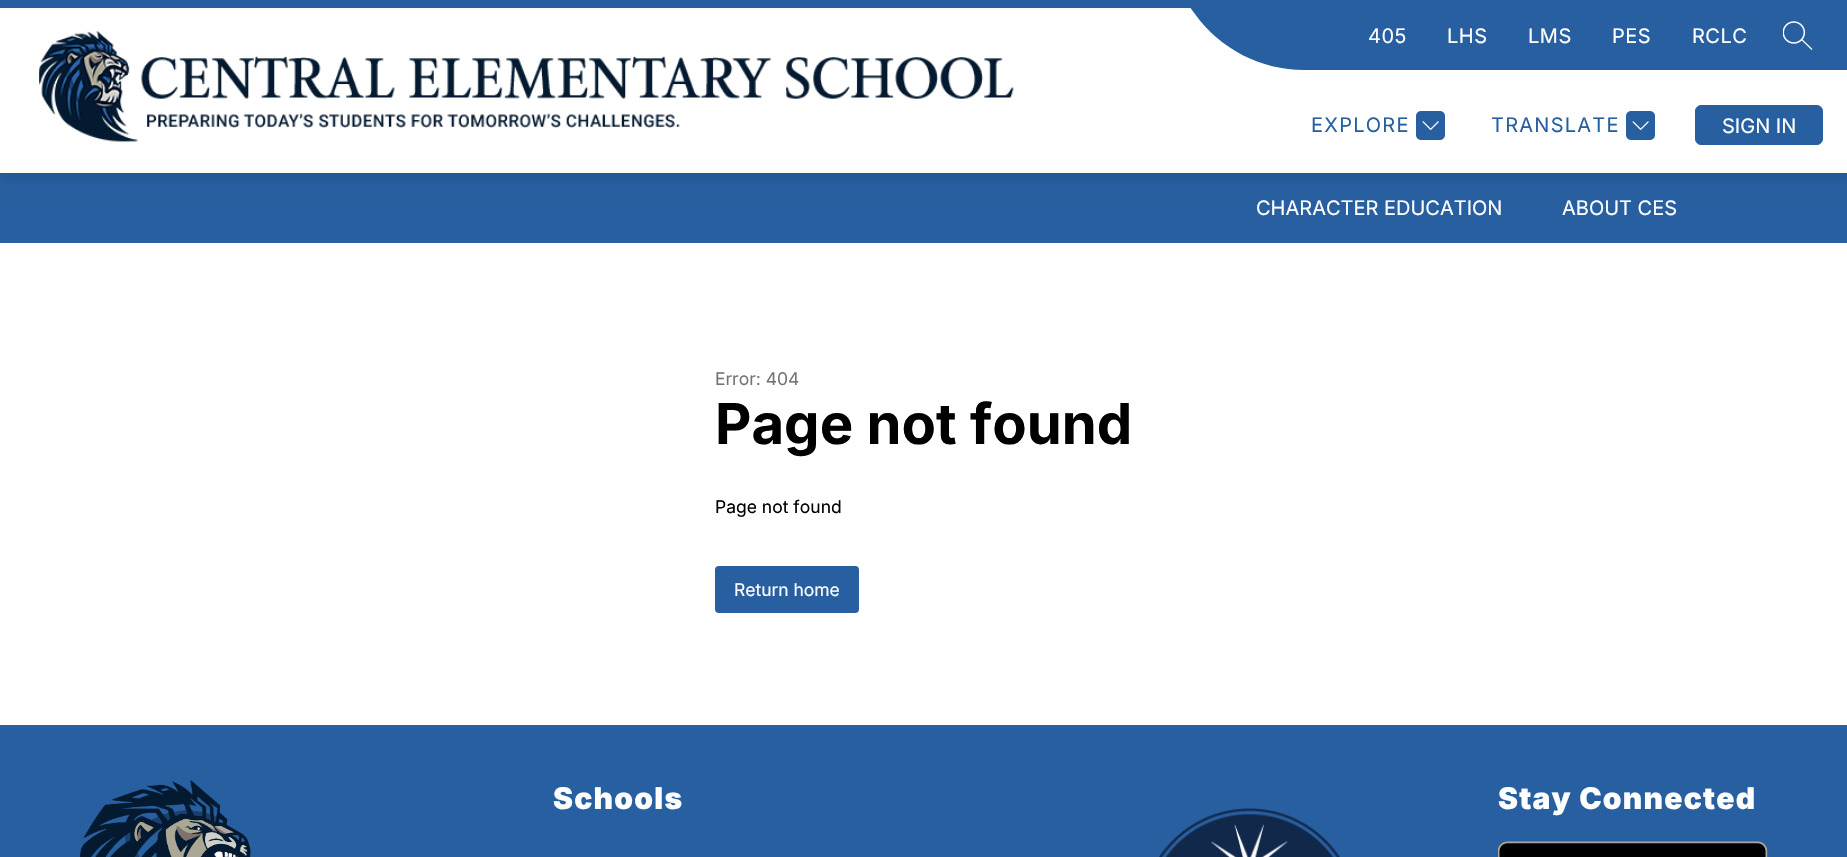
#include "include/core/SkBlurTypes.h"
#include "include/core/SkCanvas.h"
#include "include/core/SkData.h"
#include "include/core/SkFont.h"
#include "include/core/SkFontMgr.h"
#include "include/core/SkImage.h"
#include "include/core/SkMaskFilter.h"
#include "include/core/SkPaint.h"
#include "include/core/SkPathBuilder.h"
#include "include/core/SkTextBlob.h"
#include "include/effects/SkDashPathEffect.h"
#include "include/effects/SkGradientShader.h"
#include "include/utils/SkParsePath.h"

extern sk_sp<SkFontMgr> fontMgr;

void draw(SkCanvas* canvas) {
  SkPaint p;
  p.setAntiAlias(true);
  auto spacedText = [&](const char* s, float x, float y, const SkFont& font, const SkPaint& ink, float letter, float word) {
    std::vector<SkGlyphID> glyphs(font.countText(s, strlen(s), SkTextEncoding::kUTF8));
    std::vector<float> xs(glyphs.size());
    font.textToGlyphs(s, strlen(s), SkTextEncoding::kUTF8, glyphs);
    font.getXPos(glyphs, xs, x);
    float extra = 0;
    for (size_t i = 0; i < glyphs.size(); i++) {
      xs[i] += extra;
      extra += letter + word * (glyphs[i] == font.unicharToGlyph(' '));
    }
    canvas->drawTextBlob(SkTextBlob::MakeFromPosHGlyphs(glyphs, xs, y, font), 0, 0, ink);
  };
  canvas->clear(SK_ColorWHITE);
  p.setColor(SkColorSetRGB(40, 95, 160));
  canvas->drawRect(SkRect::MakeLTRB(0, 173, 1847, 243), p);
  p.setColor(SkColorSetARGB(26, 0, 0, 0));
  p.setMaskFilter(SkMaskFilter::MakeBlur(kNormal_SkBlurStyle, 6));
  canvas->drawRect(SkRect::MakeLTRB(0, 5, 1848, 178), p);
  p.setMaskFilter(nullptr);
  p.setColor(SK_ColorWHITE);
  canvas->drawRect(SkRect::MakeLTRB(0, 8, 1847, 173), p);
  p.setColor(SkColorSetRGB(40, 95, 160));
  canvas->drawRect(SkRect::MakeLTRB(0, 0, 1191, 8), p);
  canvas->drawImageRect(SkImages::DeferredFromEncodedData(SkData::MakeFromFileName("images/1.png")), SkRect::MakeLTRB(39, 31, 1014, 142), SkSamplingOptions());
  canvas->drawRect(SkRect::MakeLTRB(1308, 0, 1847, 70), p);
  canvas->drawPath(SkPathBuilder().moveTo(1304, 70).lineTo(1308, 70).lineTo(1308, 0).lineTo(1188, 0).cubicTo(1186, 0, 1186, 1, 1186, 2).lineTo(1195, 14).cubicTo(1220, 49, 1261, 70, 1304, 70).close().detach(), p);
  canvas->drawImageRect(SkImages::DeferredFromEncodedData(SkData::MakeFromFileName("images/2.png")), SkRect::MakeLTRB(1783, 21, 1813, 50), SkSamplingOptions());
  canvas->drawImageRect(SkImages::DeferredFromEncodedData(SkData::MakeFromFileName("images/3.png")), SkRect::MakeLTRB(1416, 111, 1445, 140), SkSamplingOptions());
  canvas->drawImageRect(SkImages::DeferredFromEncodedData(SkData::MakeFromFileName("images/3.png")), SkRect::MakeLTRB(1626, 111, 1655, 140), SkSamplingOptions());
  canvas->drawRoundRect(SkRect::MakeLTRB(1695.5f, 105.5f, 1822.5f, 144.5f), 5.5f, 5.5f, p);
  p.setStyle(SkPaint::kStroke_Style);
  p.setStrokeWidth(1);
  canvas->drawRoundRect(SkRect::MakeLTRB(1695.5f, 105.5f, 1822.5f, 144.5f), 5.5f, 5.5f, p);
  p.setStyle(SkPaint::kFill_Style);
  canvas->drawRoundRect(SkRect::MakeLTRB(715, 566, 859, 613), 4, 4, p);
  canvas->drawRect(SkRect::MakeLTRB(0, 725, 1847, 857), p);
  canvas->drawImageRect(SkImages::DeferredFromEncodedData(SkData::MakeFromFileName("images/4.png")), SkRect::MakeLTRB(80, 780, 251, 857), SkSamplingOptions());
  canvas->drawImageRect(SkImages::DeferredFromEncodedData(SkData::MakeFromFileName("images/5.png")), SkRect::MakeLTRB(1498, 841, 1768, 857), SkSamplingOptions());
  canvas->drawImageRect(SkImages::DeferredFromEncodedData(SkData::MakeFromFileName("images/6.png")), SkRect::MakeLTRB(1159, 808, 1340, 857), SkSamplingOptions());
  SkFont font1(fontMgr->matchFamilyStyle("Inter", SkFontStyle::Normal()), 20);
  font1.setSubpixel(true);
  p.setColor(SK_ColorWHITE);
  spacedText("405", 1368, 43, font1, p, 0.5f, 0);
  spacedText("LHS", 1447, 43, font1, p, 0.5f, 0);
  spacedText("LMS", 1528, 43, font1, p, 0.5f, 0);
  spacedText("PES", 1612, 43, font1, p, 0.5f, 0);
  spacedText("RCLC", 1692, 43, font1, p, 0.5f, 0);
  p.setColor(SkColorSetRGB(40, 95, 160));
  spacedText("EXPLORE", 1311, 132, font1, p, 1.25f, 0);
  spacedText("TRANSLATE", 1491, 132, font1, p, 1.25f, 0);
  p.setColor(SK_ColorWHITE);
  canvas->drawString("SIGN IN", 1722, 133, font1, p);
  canvas->drawString("CHARACTER EDUCATION", 1256, 215, font1, p);
  canvas->drawString("ABOUT CES", 1562, 215, font1, p);
  SkFont font2(fontMgr->matchFamilyStyle("Inter", SkFontStyle::Normal()), 17.5f);
  font2.setSubpixel(true);
  p.setColor(SkColorSetRGB(116, 116, 116));
  canvas->drawString("Error: 404", 715, 385, font2, p);
  SkFont font3(fontMgr->matchFamilyStyle("Inter", SkFontStyle::Bold()), 56.25f);
  font3.setSubpixel(true);
  p.setColor(SK_ColorBLACK);
  canvas->drawString("Page not found", 715, 444, font3, p);
  canvas->drawString("Page not found", 715, 513, font2, p);
  p.setColor(SK_ColorWHITE);
  canvas->drawString("Return home", 734, 596, font2, p);
  SkFont font4(fontMgr->matchFamilyStyle("Inter", SkFontStyle(900, SkFontStyle::kNormal_Width, SkFontStyle::kUpright_Slant)), 30);
  font4.setSubpixel(true);
  spacedText("Schools", 553, 809, font4, p, 1.25f, 0);
  spacedText("Stay Connected", 1498, 809, font4, p, 1.25f, 0);
}
